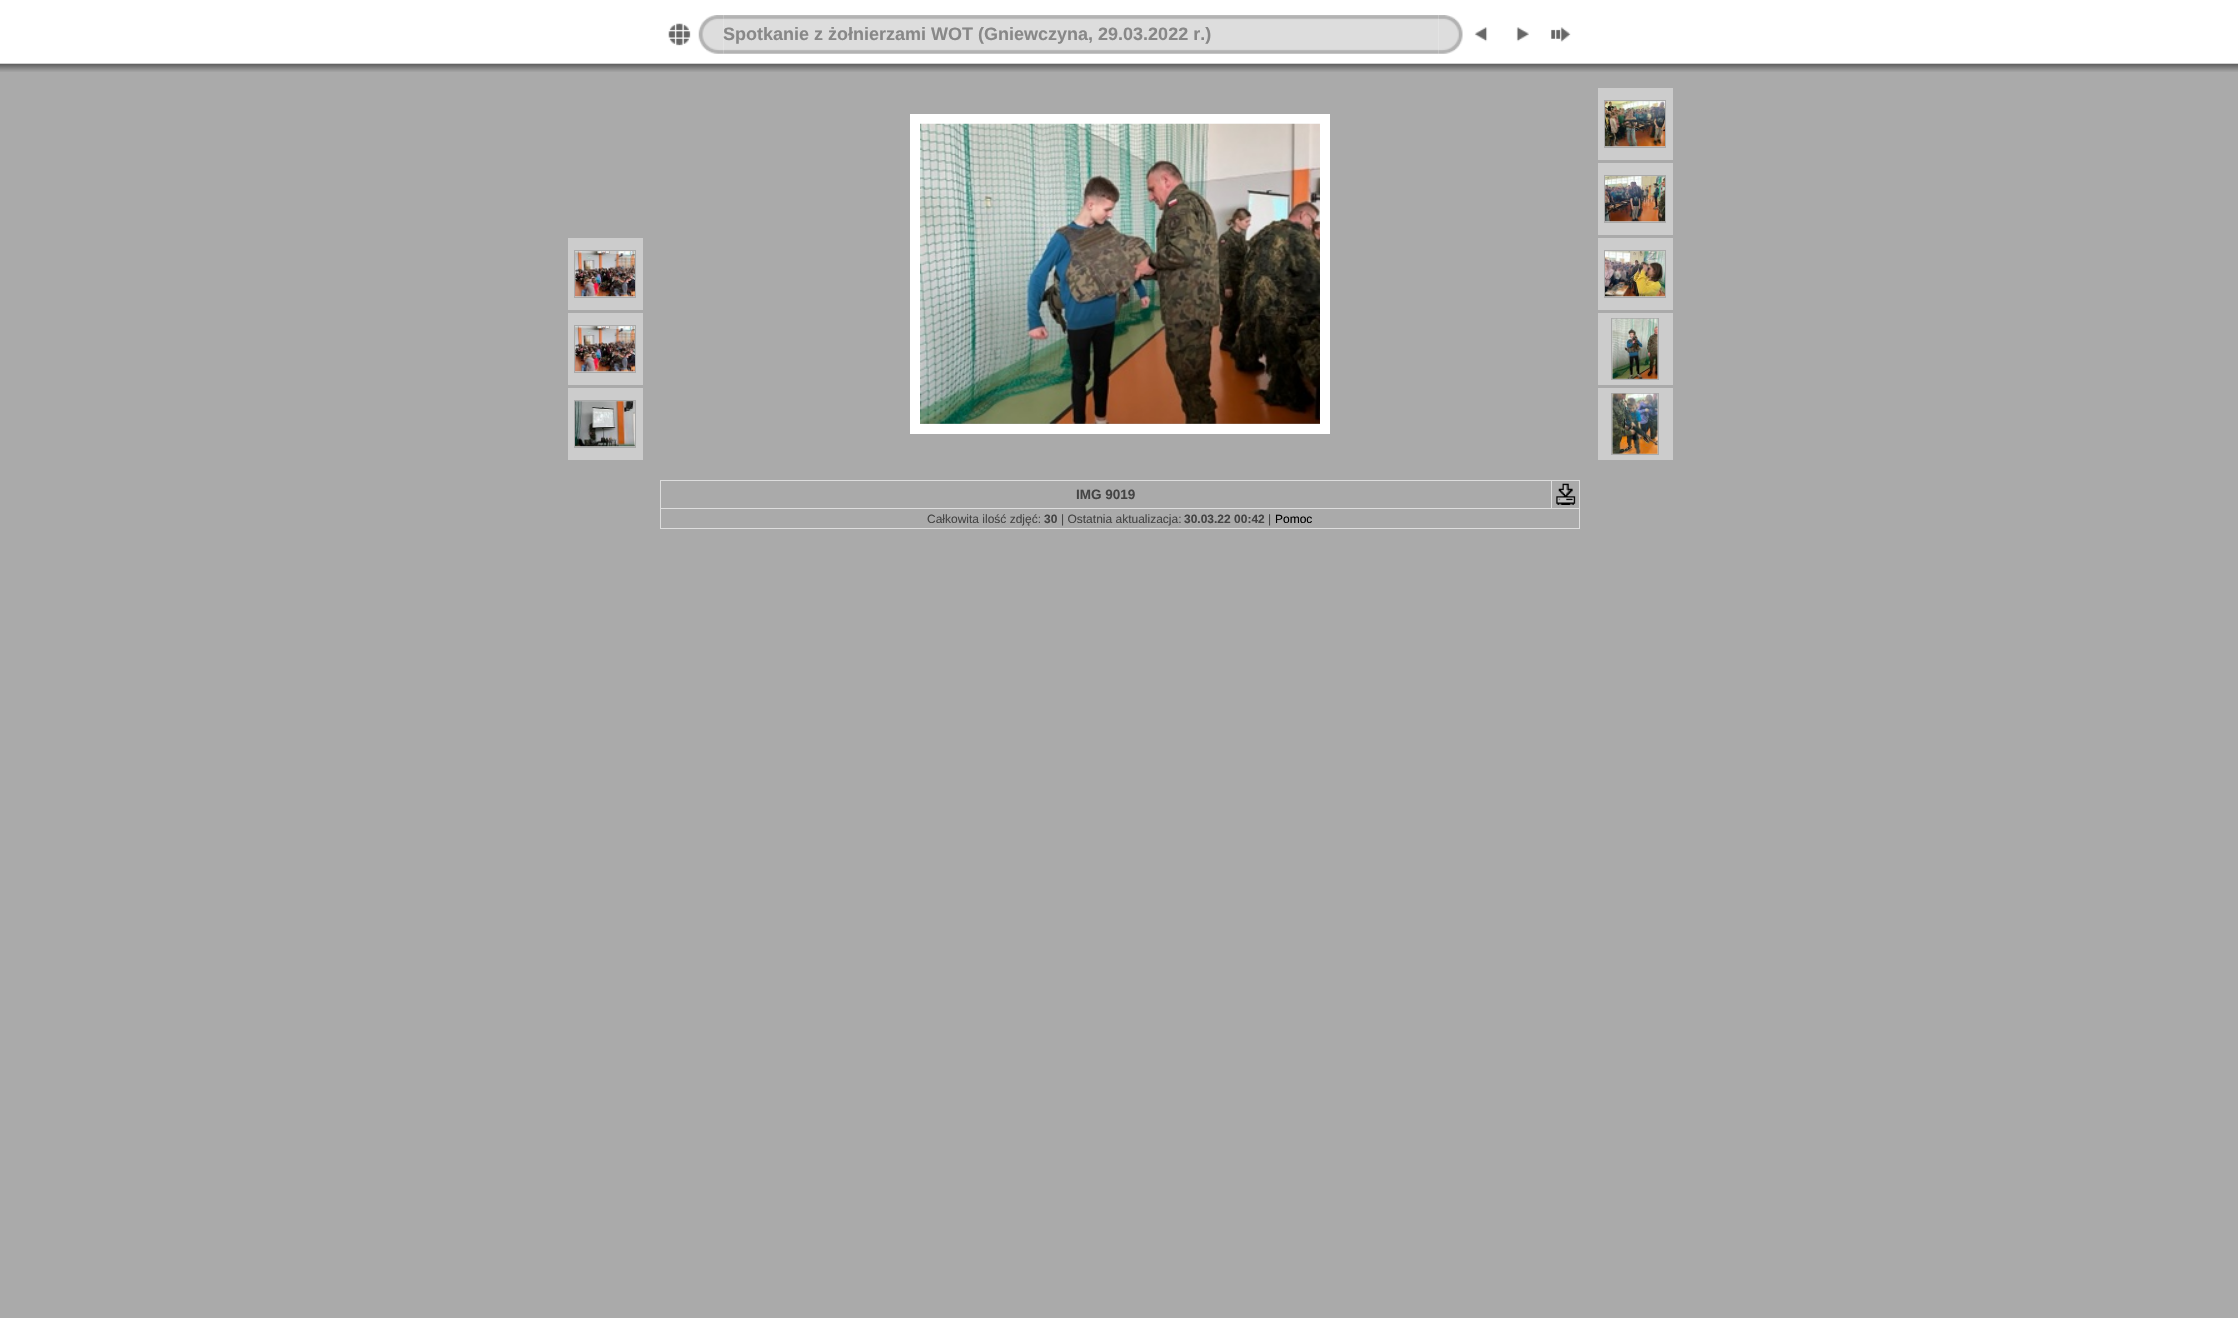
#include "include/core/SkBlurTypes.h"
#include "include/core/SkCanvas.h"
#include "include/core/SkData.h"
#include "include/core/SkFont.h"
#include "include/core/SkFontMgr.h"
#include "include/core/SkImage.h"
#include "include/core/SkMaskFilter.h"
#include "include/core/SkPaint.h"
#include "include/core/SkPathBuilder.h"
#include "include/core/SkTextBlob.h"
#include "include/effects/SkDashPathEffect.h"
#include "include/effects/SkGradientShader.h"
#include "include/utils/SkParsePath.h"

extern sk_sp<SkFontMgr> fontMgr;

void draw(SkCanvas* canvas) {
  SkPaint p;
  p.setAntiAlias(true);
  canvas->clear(SkColorSetRGB(170, 170, 170));
  canvas->drawImageRect(SkImages::DeferredFromEncodedData(SkData::MakeFromFileName("images/1.png")), SkRect::MakeLTRB(0, 0, 2238, 72), SkSamplingOptions());
  canvas->drawImageRect(SkImages::DeferredFromEncodedData(SkData::MakeFromFileName("images/2.png")), SkRect::MakeLTRB(668, 23, 691, 46), SkSamplingOptions());
  canvas->drawImageRect(SkImages::DeferredFromEncodedData(SkData::MakeFromFileName("images/4.png")), SkRect::MakeLTRB(723, 15, 1439, 54), SkSamplingOptions());
  canvas->drawImageRect(SkImages::DeferredFromEncodedData(SkData::MakeFromFileName("images/3.png")), SkRect::MakeLTRB(698, 15, 724, 54), SkSamplingOptions());
  canvas->drawImageRect(SkImages::DeferredFromEncodedData(SkData::MakeFromFileName("images/5.png")), SkRect::MakeLTRB(1438, 15, 1463, 54), SkSamplingOptions());
  canvas->drawImageRect(SkImages::DeferredFromEncodedData(SkData::MakeFromFileName("images/6.png")), SkRect::MakeLTRB(1474, 27, 1488, 42), SkSamplingOptions());
  canvas->drawImageRect(SkImages::DeferredFromEncodedData(SkData::MakeFromFileName("images/7.png")), SkRect::MakeLTRB(1516, 27, 1529, 42), SkSamplingOptions());
  canvas->drawImageRect(SkImages::DeferredFromEncodedData(SkData::MakeFromFileName("images/8.png")), SkRect::MakeLTRB(1551, 27, 1571, 42), SkSamplingOptions());
  p.setColor(SkColorSetRGB(204, 204, 204));
  canvas->drawRect(SkRect::MakeLTRB(568, 238, 643, 310), p);
  p.setStyle(SkPaint::kStroke_Style);
  p.setStrokeWidth(1);
  p.setColor(SkColorSetRGB(170, 170, 170));
  canvas->drawRect(SkRect::MakeLTRB(574.5f, 250.5f, 635.5f, 297.5f), p);
  canvas->drawImageRect(SkImages::DeferredFromEncodedData(SkData::MakeFromFileName("images/9.png")), SkRect::MakeLTRB(575, 251, 635, 297), SkSamplingOptions());
  p.setStyle(SkPaint::kFill_Style);
  p.setColor(SkColorSetRGB(204, 204, 204));
  canvas->drawRect(SkRect::MakeLTRB(568, 313, 643, 385), p);
  p.setStyle(SkPaint::kStroke_Style);
  p.setColor(SkColorSetRGB(170, 170, 170));
  canvas->drawRect(SkRect::MakeLTRB(574.5f, 325.5f, 635.5f, 372.5f), p);
  canvas->drawImageRect(SkImages::DeferredFromEncodedData(SkData::MakeFromFileName("images/9.png")), SkRect::MakeLTRB(575, 326, 635, 372), SkSamplingOptions());
  p.setStyle(SkPaint::kFill_Style);
  p.setColor(SkColorSetRGB(204, 204, 204));
  canvas->drawRect(SkRect::MakeLTRB(568, 388, 643, 460), p);
  p.setStyle(SkPaint::kStroke_Style);
  p.setColor(SkColorSetRGB(170, 170, 170));
  canvas->drawRect(SkRect::MakeLTRB(574.5f, 400.5f, 635.5f, 447.5f), p);
  canvas->drawImageRect(SkImages::DeferredFromEncodedData(SkData::MakeFromFileName("images/10.png")), SkRect::MakeLTRB(575, 401, 635, 447), SkSamplingOptions());
  p.setStrokeWidth(10);
  p.setColor(SK_ColorWHITE);
  canvas->drawRect(SkRect::MakeLTRB(915, 119, 1325, 429), p);
  canvas->drawImageRect(SkImages::DeferredFromEncodedData(SkData::MakeFromFileName("images/11.png")), SkRect::MakeLTRB(920, 123, 1320, 424), SkSamplingOptions());
  p.setStyle(SkPaint::kFill_Style);
  p.setColor(SkColorSetRGB(204, 204, 204));
  canvas->drawRect(SkRect::MakeLTRB(1598, 88, 1673, 160), p);
  p.setStyle(SkPaint::kStroke_Style);
  p.setStrokeWidth(1);
  p.setColor(SkColorSetRGB(170, 170, 170));
  canvas->drawRect(SkRect::MakeLTRB(1604.5f, 100.5f, 1665.5f, 147.5f), p);
  canvas->drawImageRect(SkImages::DeferredFromEncodedData(SkData::MakeFromFileName("images/12.png")), SkRect::MakeLTRB(1605, 101, 1665, 147), SkSamplingOptions());
  p.setStyle(SkPaint::kFill_Style);
  p.setColor(SkColorSetRGB(204, 204, 204));
  canvas->drawRect(SkRect::MakeLTRB(1598, 163, 1673, 235), p);
  p.setStyle(SkPaint::kStroke_Style);
  p.setColor(SkColorSetRGB(170, 170, 170));
  canvas->drawRect(SkRect::MakeLTRB(1604.5f, 175.5f, 1665.5f, 222.5f), p);
  canvas->drawImageRect(SkImages::DeferredFromEncodedData(SkData::MakeFromFileName("images/13.png")), SkRect::MakeLTRB(1605, 176, 1665, 222), SkSamplingOptions());
  p.setStyle(SkPaint::kFill_Style);
  p.setColor(SkColorSetRGB(204, 204, 204));
  canvas->drawRect(SkRect::MakeLTRB(1598, 238, 1673, 310), p);
  p.setStyle(SkPaint::kStroke_Style);
  p.setColor(SkColorSetRGB(170, 170, 170));
  canvas->drawRect(SkRect::MakeLTRB(1604.5f, 250.5f, 1665.5f, 297.5f), p);
  canvas->drawImageRect(SkImages::DeferredFromEncodedData(SkData::MakeFromFileName("images/14.png")), SkRect::MakeLTRB(1605, 251, 1665, 297), SkSamplingOptions());
  p.setStyle(SkPaint::kFill_Style);
  p.setColor(SkColorSetRGB(204, 204, 204));
  canvas->drawRect(SkRect::MakeLTRB(1598, 313, 1673, 385), p);
  p.setStyle(SkPaint::kStroke_Style);
  p.setColor(SkColorSetRGB(170, 170, 170));
  canvas->drawRect(SkRect::MakeLTRB(1611.5f, 318.5f, 1658.5f, 379.5f), p);
  canvas->drawImageRect(SkImages::DeferredFromEncodedData(SkData::MakeFromFileName("images/15.png")), SkRect::MakeLTRB(1612, 318, 1658, 379), SkSamplingOptions());
  p.setStyle(SkPaint::kFill_Style);
  p.setColor(SkColorSetRGB(204, 204, 204));
  canvas->drawRect(SkRect::MakeLTRB(1598, 388, 1673, 460), p);
  p.setStyle(SkPaint::kStroke_Style);
  p.setColor(SkColorSetRGB(170, 170, 170));
  canvas->drawRect(SkRect::MakeLTRB(1611.5f, 393.5f, 1658.5f, 454.5f), p);
  canvas->drawImageRect(SkImages::DeferredFromEncodedData(SkData::MakeFromFileName("images/16.png")), SkRect::MakeLTRB(1612, 393, 1658, 454), SkSamplingOptions());
  p.setStyle(SkPaint::kFill_Style);
  p.setColor(SkColorSetRGB(221, 221, 221));
  canvas->drawRect(SkRect::MakeLTRB(660, 480, 1580, 481), p);
  canvas->drawRect(SkRect::MakeLTRB(1579, 480, 1580, 529), p);
  canvas->drawRect(SkRect::MakeLTRB(660, 528, 1580, 529), p);
  canvas->drawRect(SkRect::MakeLTRB(660, 480, 661, 529), p);
  canvas->drawRect(SkRect::MakeLTRB(660, 508, 1580, 509), p);
  canvas->drawRect(SkRect::MakeLTRB(1551, 480, 1552, 509), p);
  canvas->drawImageRect(SkImages::DeferredFromEncodedData(SkData::MakeFromFileName("images/17.png")), SkRect::MakeLTRB(1556, 483, 1576, 505), SkSamplingOptions());
  SkFont font1(fontMgr->matchFamilyStyle("Liberation Sans", SkFontStyle::Bold()), 18);
  font1.setSubpixel(true);
  p.setColor(SkColorSetRGB(136, 136, 136));
  canvas->drawString("Spotkanie z żołnierzami WOT (Gniewczyna, 29.03.2022 r.)", 723, 40, font1, p);
  SkFont font2(fontMgr->matchFamilyStyle("Liberation Sans", SkFontStyle::Bold()), 13.5f);
  font2.setSubpixel(true);
  p.setColor(SkColorSetRGB(68, 68, 68));
  canvas->drawString("IMG 9019", 1076, 499, font2, p);
  SkFont font3(fontMgr->matchFamilyStyle("Liberation Sans", SkFontStyle::Normal()), 12);
  font3.setSubpixel(true);
  canvas->drawString("Całkowita ilość zdjęć:", 927, 523, font3, p);
  SkFont font4(fontMgr->matchFamilyStyle("Liberation Sans", SkFontStyle::Bold()), 12);
  font4.setSubpixel(true);
  canvas->drawString("30", 1044, 523, font4, p);
  canvas->drawString("| Ostatnia aktualizacja:", 1061, 523, font3, p);
  canvas->drawString("30.03.22 00:42", 1184, 523, font4, p);
  canvas->drawString("|", 1268, 523, font3, p);
  p.setColor(SK_ColorBLACK);
  canvas->drawString("Pomoc", 1275, 523, font3, p);
}
